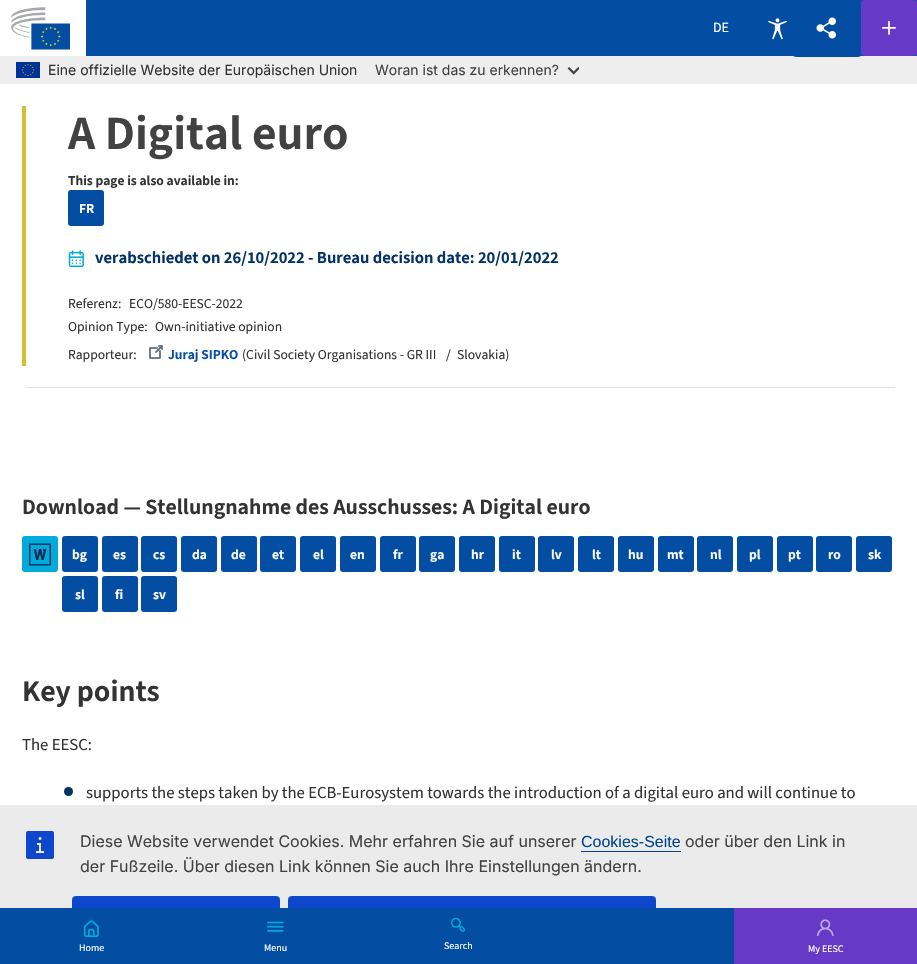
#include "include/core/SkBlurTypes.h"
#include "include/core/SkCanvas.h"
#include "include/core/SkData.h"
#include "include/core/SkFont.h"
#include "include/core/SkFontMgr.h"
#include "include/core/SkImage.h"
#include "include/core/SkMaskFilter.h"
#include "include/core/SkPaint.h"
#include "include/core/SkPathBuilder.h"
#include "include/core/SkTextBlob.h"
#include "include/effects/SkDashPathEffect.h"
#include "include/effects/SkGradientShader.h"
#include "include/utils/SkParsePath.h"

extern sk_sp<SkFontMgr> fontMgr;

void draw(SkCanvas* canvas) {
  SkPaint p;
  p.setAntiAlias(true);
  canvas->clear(SK_ColorWHITE);
  canvas->drawImageRect(SkImages::DeferredFromEncodedData(SkData::MakeFromFileName("images/1.png")), SkRect::MakeLTRB(11, 7, 70, 50), SkSamplingOptions());
  p.setColor(SkColorSetRGB(3, 78, 162));
  canvas->drawRect(SkRect::MakeLTRB(86, 0, 917, 56), p);
  p.setColor(SkColorSetRGB(235, 235, 235));
  canvas->drawRect(SkRect::MakeLTRB(0, 805, 917, 908), p);
  p.setColor(SkColorSetRGB(14, 71, 203));
  canvas->drawRoundRect(SkRect::MakeLTRB(72, 896, 280, 940), 4, 4, p);
  canvas->drawRoundRect(SkRect::MakeLTRB(288, 896, 656, 940), 4, 4, p);
  p.setColor(SkColorSetRGB(3, 78, 162));
  canvas->drawRect(SkRect::MakeLTRB(0, 908, 734, 964), p);
  canvas->drawImageRect(SkImages::DeferredFromEncodedData(SkData::MakeFromFileName("images/2.png")), SkRect::MakeLTRB(768, 18, 787, 40), SkSamplingOptions());
  canvas->drawImageRect(SkImages::DeferredFromEncodedData(SkData::MakeFromFileName("images/3.png")), SkRect::MakeLTRB(83, 920, 99, 938), SkSamplingOptions());
  canvas->drawImageRect(SkImages::DeferredFromEncodedData(SkData::MakeFromFileName("images/4.png")), SkRect::MakeLTRB(267, 921, 284, 932), SkSamplingOptions());
  canvas->drawImageRect(SkImages::DeferredFromEncodedData(SkData::MakeFromFileName("images/5.png")), SkRect::MakeLTRB(451, 917, 465, 932), SkSamplingOptions());
  p.setColor(SkColorSetRGB(104, 57, 198));
  canvas->drawRect(SkRect::MakeLTRB(734, 908, 917, 964), p);
  canvas->drawImageRect(SkImages::DeferredFromEncodedData(SkData::MakeFromFileName("images/6.png")), SkRect::MakeLTRB(817, 919, 834, 936), SkSamplingOptions());
  p.setColor(SkColorSetRGB(211, 192, 51));
  canvas->drawRect(SkRect::MakeLTRB(22, 106, 26, 366), p);
  p.setColor(SkColorSetRGB(3, 78, 162));
  canvas->drawRoundRect(SkRect::MakeLTRB(68, 190, 104, 226), 3, 3, p);
  canvas->drawImageRect(SkImages::DeferredFromEncodedData(SkData::MakeFromFileName("images/7.png")), SkRect::MakeLTRB(68, 250, 84, 268), SkSamplingOptions());
  canvas->drawImageRect(SkImages::DeferredFromEncodedData(SkData::MakeFromFileName("images/8.png")), SkRect::MakeLTRB(149, 345, 163, 359), SkSamplingOptions());
  p.setColor(SkColorSetRGB(224, 224, 224));
  canvas->drawRect(SkRect::MakeLTRB(26, 387, 895, 388), p);
  p.setColor(SkColorSetRGB(238, 238, 238));
  canvas->drawRect(SkRect::MakeLTRB(0, 56, 917, 84), p);
  p.setColor(SkColorSetRGB(3, 78, 162));
  canvas->drawRoundRect(SkRect::MakeLTRB(793, 0, 861, 57), 3, 3, p);
  canvas->drawImageRect(SkImages::DeferredFromEncodedData(SkData::MakeFromFileName("images/9.png")), SkRect::MakeLTRB(816, 17, 836, 39), SkSamplingOptions());
  p.setColor(SkColorSetRGB(104, 57, 198));
  canvas->drawRoundRect(SkRect::MakeLTRB(861, 0, 917, 56), 3, 3, p);
  canvas->drawImageRect(SkImages::DeferredFromEncodedData(SkData::MakeFromFileName("images/10.png")), SkRect::MakeLTRB(882, 20, 896, 35), SkSamplingOptions());
  p.setColor(SkColorSetRGB(0, 170, 219));
  canvas->drawRoundRect(SkRect::MakeLTRB(22, 536, 58, 572), 3, 3, p);
  canvas->drawImageRect(SkImages::DeferredFromEncodedData(SkData::MakeFromFileName("images/11.png")), SkRect::MakeLTRB(29, 543, 51, 566), SkSamplingOptions());
  p.setColor(SkColorSetRGB(3, 78, 162));
  canvas->drawRoundRect(SkRect::MakeLTRB(62, 536, 98, 572), 3, 3, p);
  canvas->drawRoundRect(SkRect::MakeLTRB(102, 536, 138, 572), 3, 3, p);
  canvas->drawRoundRect(SkRect::MakeLTRB(141, 536, 177, 572), 3, 3, p);
  canvas->drawRoundRect(SkRect::MakeLTRB(181, 536, 217, 572), 3, 3, p);
  canvas->drawRoundRect(SkRect::MakeLTRB(221, 536, 257, 572), 3, 3, p);
  canvas->drawRoundRect(SkRect::MakeLTRB(260, 536, 296, 572), 3, 3, p);
  canvas->drawRoundRect(SkRect::MakeLTRB(300, 536, 336, 572), 3, 3, p);
  canvas->drawRoundRect(SkRect::MakeLTRB(340, 536, 376, 572), 3, 3, p);
  canvas->drawRoundRect(SkRect::MakeLTRB(380, 536, 416, 572), 3, 3, p);
  canvas->drawRoundRect(SkRect::MakeLTRB(419, 536, 455, 572), 3, 3, p);
  canvas->drawRoundRect(SkRect::MakeLTRB(459, 536, 495, 572), 3, 3, p);
  canvas->drawRoundRect(SkRect::MakeLTRB(499, 536, 535, 572), 3, 3, p);
  canvas->drawRoundRect(SkRect::MakeLTRB(538, 536, 574, 572), 3, 3, p);
  canvas->drawRoundRect(SkRect::MakeLTRB(578, 536, 614, 572), 3, 3, p);
  canvas->drawRoundRect(SkRect::MakeLTRB(618, 536, 654, 572), 3, 3, p);
  canvas->drawRoundRect(SkRect::MakeLTRB(658, 536, 694, 572), 3, 3, p);
  canvas->drawRoundRect(SkRect::MakeLTRB(697, 536, 733, 572), 3, 3, p);
  canvas->drawRoundRect(SkRect::MakeLTRB(737, 536, 773, 572), 3, 3, p);
  canvas->drawRoundRect(SkRect::MakeLTRB(777, 536, 813, 572), 3, 3, p);
  canvas->drawRoundRect(SkRect::MakeLTRB(816, 536, 852, 572), 3, 3, p);
  canvas->drawRoundRect(SkRect::MakeLTRB(856, 536, 892, 572), 3, 3, p);
  canvas->drawRoundRect(SkRect::MakeLTRB(62, 576, 98, 612), 3, 3, p);
  canvas->drawRoundRect(SkRect::MakeLTRB(102, 576, 138, 612), 3, 3, p);
  canvas->drawRoundRect(SkRect::MakeLTRB(141, 576, 177, 612), 3, 3, p);
  p.setColor(SkColorSetRGB(2, 50, 103));
  canvas->drawCircle(68.5f, 791.5f, 4.5f, p);
  canvas->drawImageRect(SkImages::DeferredFromEncodedData(SkData::MakeFromFileName("images/12.png")), SkRect::MakeLTRB(16, 62, 40, 78), SkSamplingOptions());
  canvas->drawImageRect(SkImages::DeferredFromEncodedData(SkData::MakeFromFileName("images/13.png")), SkRect::MakeLTRB(567, 67, 579, 75), SkSamplingOptions());
  canvas->drawImageRect(SkImages::DeferredFromEncodedData(SkData::MakeFromFileName("images/14.png")), SkRect::MakeLTRB(26, 831, 54, 859), SkSamplingOptions());
  p.setColor(SkColorSetRGB(0, 68, 148));
  canvas->drawRect(SkRect::MakeLTRB(581, 851, 681, 852), p);
  SkFont font1(fontMgr->matchFamilyStyle("Source Sans 3", SkFontStyle::Normal()), 14);
  font1.setSubpixel(true);
  p.setColor(SK_ColorWHITE);
  canvas->drawString("DE", 713, 32, font1, p);
  SkFont font2(fontMgr->matchFamilyStyle("Source Sans 3", SkFontStyle::Normal()), 10);
  font2.setSubpixel(true);
  canvas->drawString("Home", 79, 951, font2, p);
  canvas->drawString("Menu", 264, 951, font2, p);
  canvas->drawString("Search", 444, 949, font2, p);
  canvas->drawString("My EESC", 808, 952, font2, p);
  SkFont font3(fontMgr->matchFamilyStyle("Source Sans 3", SkFontStyle(600, SkFontStyle::kNormal_Width, SkFontStyle::kUpright_Slant)), 48);
  font3.setSubpixel(true);
  p.setColor(SkColorSetRGB(66, 66, 66));
  canvas->drawString("A Digital euro", 68, 149, font3, p);
  SkFont font4(fontMgr->matchFamilyStyle("Source Sans 3", SkFontStyle(600, SkFontStyle::kNormal_Width, SkFontStyle::kUpright_Slant)), 13.6f);
  font4.setSubpixel(true);
  p.setColor(SkColorSetRGB(51, 51, 51));
  canvas->drawString("This page is also available in:", 68, 185, font4, p);
  p.setColor(SK_ColorWHITE);
  canvas->drawString("FR", 79, 213, font4, p);
  SkFont font5(fontMgr->matchFamilyStyle("Source Sans 3", SkFontStyle(600, SkFontStyle::kNormal_Width, SkFontStyle::kUpright_Slant)), 16.7f);
  font5.setSubpixel(true);
  p.setColor(SkColorSetRGB(2, 50, 103));
  canvas->drawString("verabschiedet on 26/10/2022 - Bureau decision date: 20/01/2022", 95, 263, font5, p);
  SkFont font6(fontMgr->matchFamilyStyle("Source Sans 3", SkFontStyle::Normal()), 13.6f);
  font6.setSubpixel(true);
  p.setColor(SkColorSetRGB(51, 51, 51));
  canvas->drawString("Referenz:", 68, 308, font6, p);
  canvas->drawString("ECO/580-EESC-2022", 129, 308, font6, p);
  canvas->drawString("Opinion Type:", 68, 331, font6, p);
  canvas->drawString("Own-initiative opinion", 155, 331, font6, p);
  canvas->drawString("Rapporteur:", 68, 359, font6, p);
  p.setColor(SkColorSetRGB(3, 78, 162));
  canvas->drawString("Juraj SIPKO", 168, 359, font4, p);
  p.setColor(SkColorSetRGB(51, 51, 51));
  canvas->drawString("(Civil Society Organisations - GR III", 242, 359, font6, p);
  canvas->drawString("/", 446, 359, font6, p);
  canvas->drawString("Slovakia)", 457, 359, font6, p);
  SkFont font7(fontMgr->matchFamilyStyle("Source Sans 3", SkFontStyle(600, SkFontStyle::kNormal_Width, SkFontStyle::kUpright_Slant)), 21.9f);
  font7.setSubpixel(true);
  canvas->drawString("Download — Stellungnahme des Ausschusses: A Digital euro", 22, 514, font7, p);
  p.setColor(SK_ColorWHITE);
  canvas->drawString("bg", 72, 559, font4, p);
  canvas->drawString("es", 113, 559, font4, p);
  canvas->drawString("cs", 153, 559, font4, p);
  canvas->drawString("da", 192, 559, font4, p);
  canvas->drawString("de", 231, 559, font4, p);
  canvas->drawString("et", 272, 559, font4, p);
  canvas->drawString("el", 313, 559, font4, p);
  canvas->drawString("en", 350, 559, font4, p);
  canvas->drawString("fr", 393, 559, font4, p);
  canvas->drawString("ga", 430, 559, font4, p);
  canvas->drawString("hr", 471, 559, font4, p);
  canvas->drawString("it", 512, 559, font4, p);
  canvas->drawString("lv", 551, 559, font4, p);
  canvas->drawString("lt", 592, 559, font4, p);
  canvas->drawString("hu", 628, 559, font4, p);
  canvas->drawString("mt", 667, 559, font4, p);
  canvas->drawString("nl", 710, 559, font4, p);
  canvas->drawString("pl", 749, 559, font4, p);
  canvas->drawString("pt", 788, 559, font4, p);
  canvas->drawString("ro", 828, 559, font4, p);
  canvas->drawString("sk", 868, 559, font4, p);
  canvas->drawString("sl", 75, 599, font4, p);
  canvas->drawString("fi", 115, 599, font4, p);
  canvas->drawString("sv", 153, 599, font4, p);
  SkFont font8(fontMgr->matchFamilyStyle("Source Sans 3", SkFontStyle(600, SkFontStyle::kNormal_Width, SkFontStyle::kUpright_Slant)), 30);
  font8.setSubpixel(true);
  p.setColor(SkColorSetRGB(51, 51, 51));
  canvas->drawString("Key points", 22, 701, font8, p);
  SkFont font9(fontMgr->matchFamilyStyle("Source Sans 3", SkFontStyle::Normal()), 16.7f);
  font9.setSubpixel(true);
  canvas->drawString("The EESC:", 22, 750, font9, p);
  canvas->drawString("supports the steps taken by the ECB-Eurosystem towards the introduction of a digital euro and will continue to", 86, 798, font9, p);
  SkFont font10(fontMgr->matchFamilyStyle("Inter", SkFontStyle::Normal()), 14);
  font10.setSubpixel(true);
  canvas->drawString("Eine offizielle Website der Europäischen Union", 48, 75, font10, p);
  p.setColor(SkColorSetRGB(66, 66, 66));
  canvas->drawString("Woran ist das zu erkennen?", 375, 75, font10, p);
  SkFont font11(fontMgr->matchFamilyStyle("Inter", SkFontStyle::Normal()), 16);
  font11.setSubpixel(true);
  canvas->drawString("Diese Website verwendet Cookies. Mehr erfahren Sie auf unserer", 80, 847, font11, p);
  SkFont font12(fontMgr->matchFamilyStyle("Liberation Sans", SkFontStyle::Normal()), 16);
  font12.setSubpixel(true);
  p.setColor(SkColorSetRGB(0, 68, 148));
  canvas->drawString("Cookies-Seite", 581, 847, font12, p);
  p.setColor(SkColorSetRGB(66, 66, 66));
  canvas->drawString("oder über den Link in", 685, 847, font11, p);
  canvas->drawString("der Fußzeile. Über diesen Link können Sie auch Ihre Einstellungen ändern.", 80, 872, font11, p);
}
